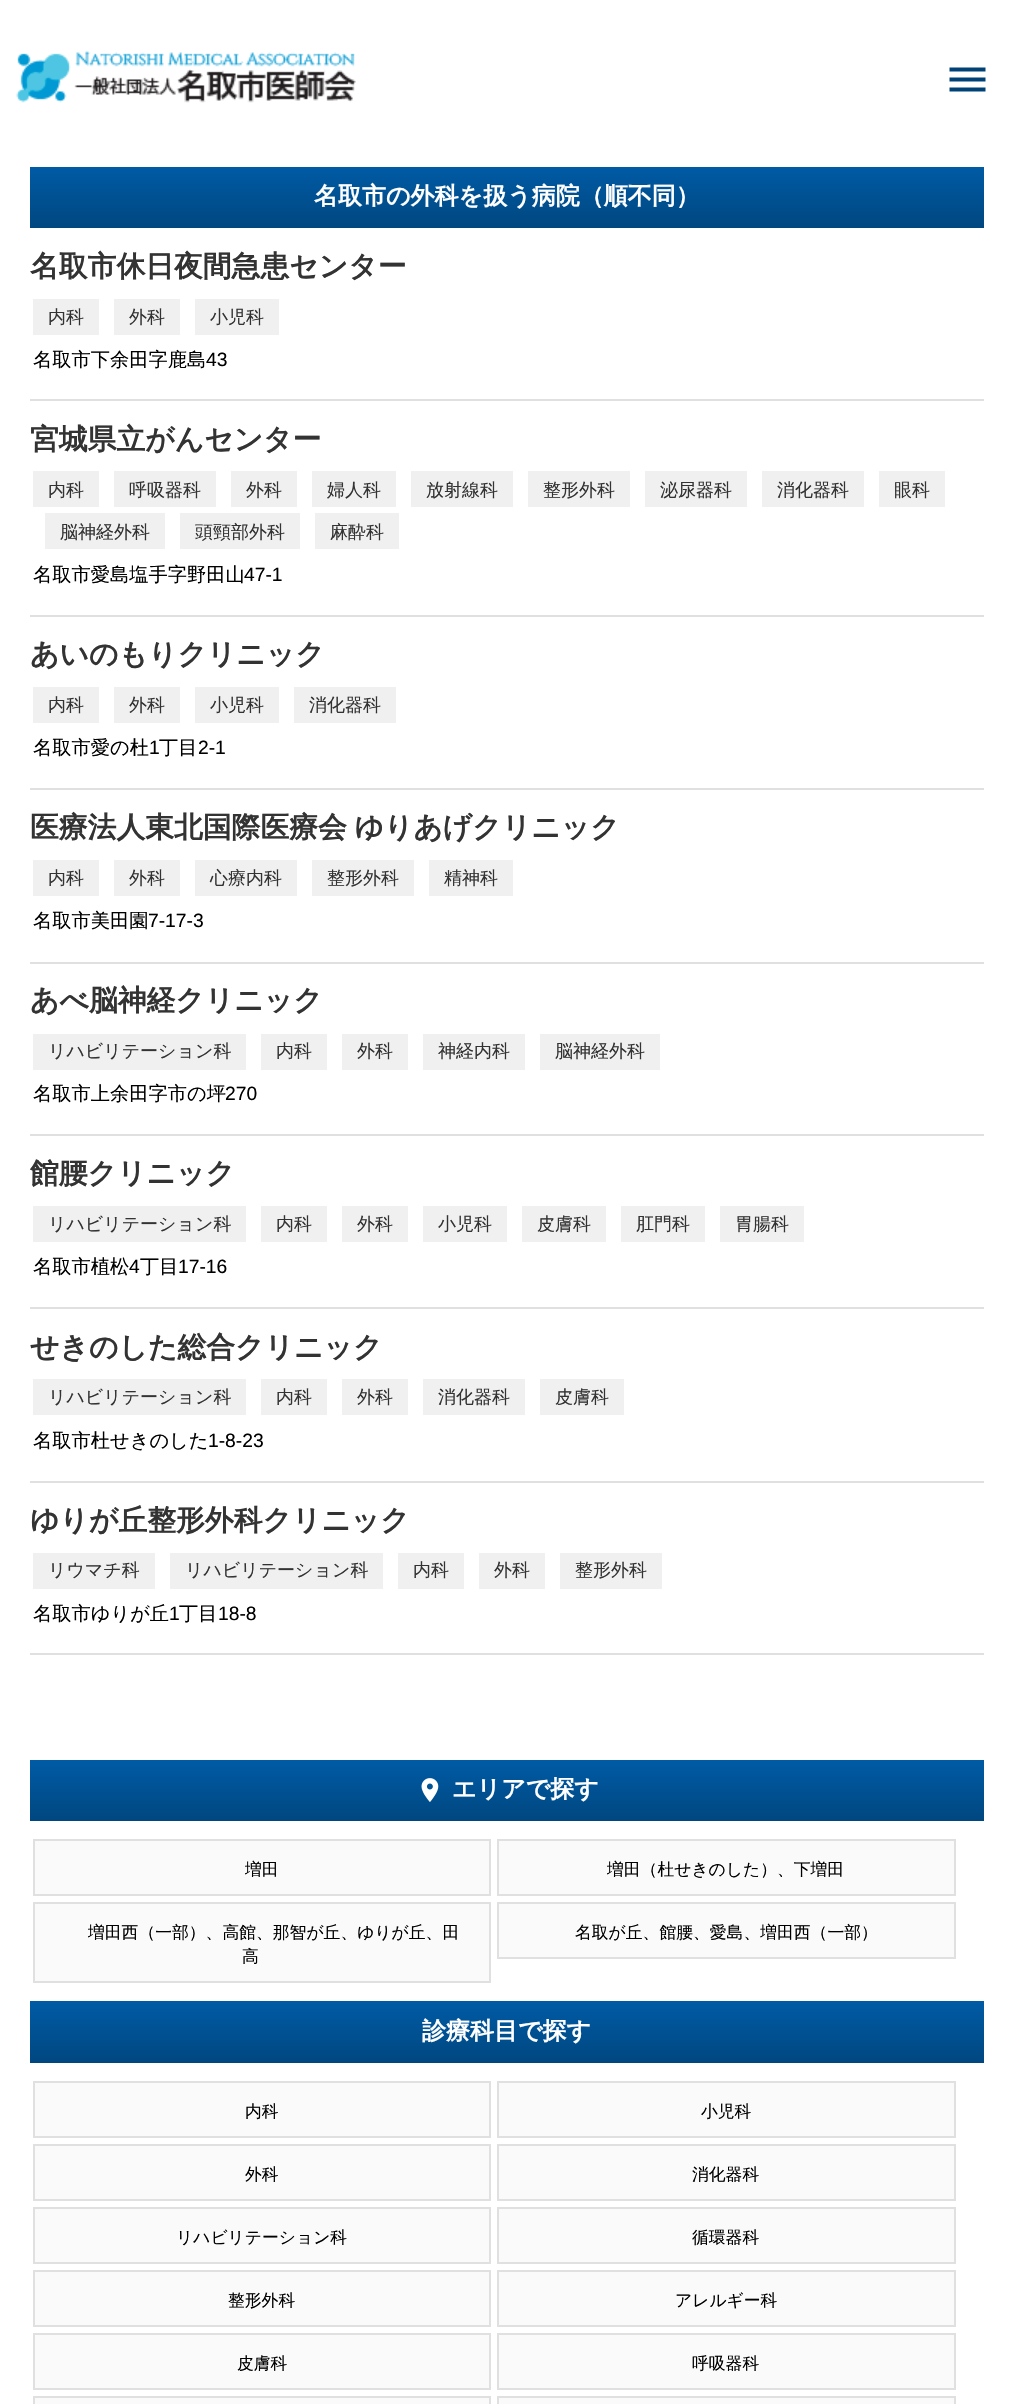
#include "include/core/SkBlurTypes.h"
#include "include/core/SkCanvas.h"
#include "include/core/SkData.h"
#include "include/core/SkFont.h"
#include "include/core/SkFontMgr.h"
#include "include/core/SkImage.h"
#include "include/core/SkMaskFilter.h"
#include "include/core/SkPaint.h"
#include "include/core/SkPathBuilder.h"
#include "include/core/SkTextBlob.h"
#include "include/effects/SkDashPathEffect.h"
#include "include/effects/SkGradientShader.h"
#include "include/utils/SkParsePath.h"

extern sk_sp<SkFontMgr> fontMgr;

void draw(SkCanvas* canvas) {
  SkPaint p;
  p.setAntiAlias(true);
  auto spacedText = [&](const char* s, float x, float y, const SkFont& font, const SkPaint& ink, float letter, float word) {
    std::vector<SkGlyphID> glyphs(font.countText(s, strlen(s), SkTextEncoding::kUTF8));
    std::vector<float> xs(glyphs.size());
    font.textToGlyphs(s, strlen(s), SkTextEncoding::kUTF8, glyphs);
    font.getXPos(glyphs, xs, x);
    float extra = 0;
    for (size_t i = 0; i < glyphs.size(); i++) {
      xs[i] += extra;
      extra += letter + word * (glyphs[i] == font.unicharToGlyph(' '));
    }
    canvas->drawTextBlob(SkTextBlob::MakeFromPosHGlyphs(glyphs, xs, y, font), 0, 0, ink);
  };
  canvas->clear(SK_ColorWHITE);
  canvas->drawImageRect(SkImages::DeferredFromEncodedData(SkData::MakeFromFileName("images/1.png")), SkRect::MakeLTRB(16, 50, 356, 103), SkSamplingOptions());
  p.setColor(SkColorSetRGB(0, 65, 118));
  canvas->drawPath(SkPathBuilder().moveTo(949.5f, 67.5f).lineTo(985.5f, 67.5f).lineTo(985.5f, 71.5f).lineTo(949.5f, 71.5f).close().moveTo(949.5f, 81.5f).lineTo(949.5f, 77.5f).lineTo(985.5f, 77.5f).lineTo(985.5f, 81.5f).close().moveTo(949.5f, 91.5f).lineTo(949.5f, 87.5f).lineTo(985.5f, 87.5f).lineTo(985.5f, 91.5f).close().detach(), p);
  {
    const SkColor colors[] = {SkColorSetRGB(0, 91, 165), SkColorSetRGB(0, 71, 128)};
    const float stops[] = {0, 1};
    const SkPoint ends[] = {{507, 166}, {507, 228}};
    p.setShader(SkGradientShader::MakeLinear(ends, colors, stops, 2, SkTileMode::kClamp));
    p.setAlpha(255);
  }
  canvas->drawRect(SkRect::MakeLTRB(30, 167, 984, 228), p);
  p.setShader(nullptr);
  p.setColor(SkColorSetRGB(224, 224, 224));
  canvas->drawRect(SkRect::MakeLTRB(30, 399, 984, 401), p);
  p.setColor(SkColorSetRGB(240, 240, 240));
  canvas->drawRect(SkRect::MakeLTRB(33, 299, 99, 335), p);
  canvas->drawRect(SkRect::MakeLTRB(114, 299, 180, 335), p);
  canvas->drawRect(SkRect::MakeLTRB(195, 299, 279, 335), p);
  p.setColor(SkColorSetRGB(224, 224, 224));
  canvas->drawRect(SkRect::MakeLTRB(30, 615, 984, 617), p);
  p.setColor(SkColorSetRGB(240, 240, 240));
  canvas->drawRect(SkRect::MakeLTRB(33, 471, 99, 507), p);
  canvas->drawRect(SkRect::MakeLTRB(114, 471, 216, 507), p);
  canvas->drawRect(SkRect::MakeLTRB(231, 471, 297, 507), p);
  canvas->drawRect(SkRect::MakeLTRB(312, 471, 396, 507), p);
  canvas->drawRect(SkRect::MakeLTRB(411, 471, 513, 507), p);
  canvas->drawRect(SkRect::MakeLTRB(528, 471, 630, 507), p);
  canvas->drawRect(SkRect::MakeLTRB(645, 471, 747, 507), p);
  canvas->drawRect(SkRect::MakeLTRB(762, 471, 864, 507), p);
  canvas->drawRect(SkRect::MakeLTRB(879, 471, 945, 507), p);
  canvas->drawRect(SkRect::MakeLTRB(45, 513, 165, 549), p);
  canvas->drawRect(SkRect::MakeLTRB(180, 513, 300, 549), p);
  canvas->drawRect(SkRect::MakeLTRB(315, 513, 399, 549), p);
  p.setColor(SkColorSetRGB(224, 224, 224));
  canvas->drawRect(SkRect::MakeLTRB(30, 788, 984, 790), p);
  p.setColor(SkColorSetRGB(240, 240, 240));
  canvas->drawRect(SkRect::MakeLTRB(33, 687, 99, 723), p);
  canvas->drawRect(SkRect::MakeLTRB(114, 687, 180, 723), p);
  canvas->drawRect(SkRect::MakeLTRB(195, 687, 279, 723), p);
  canvas->drawRect(SkRect::MakeLTRB(294, 687, 396, 723), p);
  p.setColor(SkColorSetRGB(224, 224, 224));
  canvas->drawRect(SkRect::MakeLTRB(30, 962, 984, 964), p);
  p.setColor(SkColorSetRGB(240, 240, 240));
  canvas->drawRect(SkRect::MakeLTRB(33, 860, 99, 896), p);
  canvas->drawRect(SkRect::MakeLTRB(114, 860, 180, 896), p);
  canvas->drawRect(SkRect::MakeLTRB(195, 860, 297, 896), p);
  canvas->drawRect(SkRect::MakeLTRB(312, 860, 414, 896), p);
  canvas->drawRect(SkRect::MakeLTRB(429, 860, 513, 896), p);
  p.setColor(SkColorSetRGB(224, 224, 224));
  canvas->drawRect(SkRect::MakeLTRB(30, 1134, 984, 1136), p);
  p.setColor(SkColorSetRGB(240, 240, 240));
  canvas->drawRect(SkRect::MakeLTRB(33, 1034, 246, 1070), p);
  canvas->drawRect(SkRect::MakeLTRB(261, 1034, 327, 1070), p);
  canvas->drawRect(SkRect::MakeLTRB(342, 1034, 408, 1070), p);
  canvas->drawRect(SkRect::MakeLTRB(423, 1034, 525, 1070), p);
  canvas->drawRect(SkRect::MakeLTRB(540, 1034, 660, 1070), p);
  p.setColor(SkColorSetRGB(224, 224, 224));
  canvas->drawRect(SkRect::MakeLTRB(30, 1307, 984, 1309), p);
  p.setColor(SkColorSetRGB(240, 240, 240));
  canvas->drawRect(SkRect::MakeLTRB(33, 1206, 246, 1242), p);
  canvas->drawRect(SkRect::MakeLTRB(261, 1206, 327, 1242), p);
  canvas->drawRect(SkRect::MakeLTRB(342, 1206, 408, 1242), p);
  canvas->drawRect(SkRect::MakeLTRB(423, 1206, 507, 1242), p);
  canvas->drawRect(SkRect::MakeLTRB(522, 1206, 606, 1242), p);
  canvas->drawRect(SkRect::MakeLTRB(621, 1206, 705, 1242), p);
  canvas->drawRect(SkRect::MakeLTRB(720, 1206, 804, 1242), p);
  p.setColor(SkColorSetRGB(224, 224, 224));
  canvas->drawRect(SkRect::MakeLTRB(30, 1481, 984, 1483), p);
  p.setColor(SkColorSetRGB(240, 240, 240));
  canvas->drawRect(SkRect::MakeLTRB(33, 1379, 246, 1415), p);
  canvas->drawRect(SkRect::MakeLTRB(261, 1379, 327, 1415), p);
  canvas->drawRect(SkRect::MakeLTRB(342, 1379, 408, 1415), p);
  canvas->drawRect(SkRect::MakeLTRB(423, 1379, 525, 1415), p);
  canvas->drawRect(SkRect::MakeLTRB(540, 1379, 624, 1415), p);
  p.setColor(SkColorSetRGB(224, 224, 224));
  canvas->drawRect(SkRect::MakeLTRB(30, 1653, 984, 1655), p);
  p.setColor(SkColorSetRGB(240, 240, 240));
  canvas->drawRect(SkRect::MakeLTRB(33, 1553, 155, 1589), p);
  canvas->drawRect(SkRect::MakeLTRB(170, 1553, 383, 1589), p);
  canvas->drawRect(SkRect::MakeLTRB(398, 1553, 464, 1589), p);
  canvas->drawRect(SkRect::MakeLTRB(479, 1553, 545, 1589), p);
  canvas->drawRect(SkRect::MakeLTRB(560, 1553, 662, 1589), p);
  {
    const SkColor colors[] = {SkColorSetRGB(0, 91, 165), SkColorSetRGB(0, 71, 128)};
    const float stops[] = {0, 1};
    const SkPoint ends[] = {{507, 1760}, {507, 1821}};
    p.setShader(SkGradientShader::MakeLinear(ends, colors, stops, 2, SkTileMode::kClamp));
    p.setAlpha(255);
  }
  canvas->drawRect(SkRect::MakeLTRB(30, 1760, 984, 1821), p);
  canvas->drawImageRect(SkImages::DeferredFromEncodedData(SkData::MakeFromFileName("images/2.png")), SkRect::MakeLTRB(421, 1778, 439, 1802), SkSamplingOptions());
  p.setShader(nullptr);
  p.setColor(SkColorSetRGB(250, 250, 250));
  canvas->drawRect(SkRect::MakeLTRB(34, 1840, 490, 1895), p);
  p.setStyle(SkPaint::kStroke_Style);
  p.setStrokeWidth(2);
  p.setColor(SkColorSetRGB(224, 224, 224));
  canvas->drawRect(SkRect::MakeLTRB(34, 1840, 490, 1895), p);
  p.setStyle(SkPaint::kFill_Style);
  p.setColor(SkColorSetRGB(250, 250, 250));
  canvas->drawRect(SkRect::MakeLTRB(498, 1840, 955, 1895), p);
  p.setStyle(SkPaint::kStroke_Style);
  p.setColor(SkColorSetRGB(224, 224, 224));
  canvas->drawRect(SkRect::MakeLTRB(498, 1840, 955, 1895), p);
  p.setStyle(SkPaint::kFill_Style);
  p.setColor(SkColorSetRGB(250, 250, 250));
  canvas->drawRect(SkRect::MakeLTRB(34, 1903, 490, 1982), p);
  p.setStyle(SkPaint::kStroke_Style);
  p.setColor(SkColorSetRGB(224, 224, 224));
  canvas->drawRect(SkRect::MakeLTRB(34, 1903, 490, 1982), p);
  p.setStyle(SkPaint::kFill_Style);
  p.setColor(SkColorSetRGB(250, 250, 250));
  canvas->drawRect(SkRect::MakeLTRB(498, 1903, 955, 1958), p);
  p.setStyle(SkPaint::kStroke_Style);
  p.setColor(SkColorSetRGB(224, 224, 224));
  canvas->drawRect(SkRect::MakeLTRB(498, 1903, 955, 1958), p);
  p.setStyle(SkPaint::kFill_Style);
  {
    const SkColor colors[] = {SkColorSetRGB(0, 91, 165), SkColorSetRGB(0, 71, 128)};
    const float stops[] = {0, 1};
    const SkPoint ends[] = {{507, 2001}, {507, 2063}};
    p.setShader(SkGradientShader::MakeLinear(ends, colors, stops, 2, SkTileMode::kClamp));
    p.setAlpha(255);
  }
  canvas->drawRect(SkRect::MakeLTRB(30, 2001, 984, 2063), p);
  p.setShader(nullptr);
  p.setColor(SkColorSetRGB(250, 250, 250));
  canvas->drawRect(SkRect::MakeLTRB(34, 2082, 490, 2137), p);
  p.setStyle(SkPaint::kStroke_Style);
  p.setColor(SkColorSetRGB(224, 224, 224));
  canvas->drawRect(SkRect::MakeLTRB(34, 2082, 490, 2137), p);
  p.setStyle(SkPaint::kFill_Style);
  p.setColor(SkColorSetRGB(250, 250, 250));
  canvas->drawRect(SkRect::MakeLTRB(498, 2082, 955, 2137), p);
  p.setStyle(SkPaint::kStroke_Style);
  p.setColor(SkColorSetRGB(224, 224, 224));
  canvas->drawRect(SkRect::MakeLTRB(498, 2082, 955, 2137), p);
  p.setStyle(SkPaint::kFill_Style);
  p.setColor(SkColorSetRGB(250, 250, 250));
  canvas->drawRect(SkRect::MakeLTRB(34, 2145, 490, 2200), p);
  p.setStyle(SkPaint::kStroke_Style);
  p.setColor(SkColorSetRGB(224, 224, 224));
  canvas->drawRect(SkRect::MakeLTRB(34, 2145, 490, 2200), p);
  p.setStyle(SkPaint::kFill_Style);
  p.setColor(SkColorSetRGB(250, 250, 250));
  canvas->drawRect(SkRect::MakeLTRB(498, 2145, 955, 2200), p);
  p.setStyle(SkPaint::kStroke_Style);
  p.setColor(SkColorSetRGB(224, 224, 224));
  canvas->drawRect(SkRect::MakeLTRB(498, 2145, 955, 2200), p);
  p.setStyle(SkPaint::kFill_Style);
  p.setColor(SkColorSetRGB(250, 250, 250));
  canvas->drawRect(SkRect::MakeLTRB(34, 2208, 490, 2263), p);
  p.setStyle(SkPaint::kStroke_Style);
  p.setColor(SkColorSetRGB(224, 224, 224));
  canvas->drawRect(SkRect::MakeLTRB(34, 2208, 490, 2263), p);
  p.setStyle(SkPaint::kFill_Style);
  p.setColor(SkColorSetRGB(250, 250, 250));
  canvas->drawRect(SkRect::MakeLTRB(498, 2208, 955, 2263), p);
  p.setStyle(SkPaint::kStroke_Style);
  p.setColor(SkColorSetRGB(224, 224, 224));
  canvas->drawRect(SkRect::MakeLTRB(498, 2208, 955, 2263), p);
  p.setStyle(SkPaint::kFill_Style);
  p.setColor(SkColorSetRGB(250, 250, 250));
  canvas->drawRect(SkRect::MakeLTRB(34, 2271, 490, 2326), p);
  p.setStyle(SkPaint::kStroke_Style);
  p.setColor(SkColorSetRGB(224, 224, 224));
  canvas->drawRect(SkRect::MakeLTRB(34, 2271, 490, 2326), p);
  p.setStyle(SkPaint::kFill_Style);
  p.setColor(SkColorSetRGB(250, 250, 250));
  canvas->drawRect(SkRect::MakeLTRB(498, 2271, 955, 2326), p);
  p.setStyle(SkPaint::kStroke_Style);
  p.setColor(SkColorSetRGB(224, 224, 224));
  canvas->drawRect(SkRect::MakeLTRB(498, 2271, 955, 2326), p);
  p.setStyle(SkPaint::kFill_Style);
  p.setColor(SkColorSetRGB(250, 250, 250));
  canvas->drawRect(SkRect::MakeLTRB(34, 2334, 490, 2389), p);
  p.setStyle(SkPaint::kStroke_Style);
  p.setColor(SkColorSetRGB(224, 224, 224));
  canvas->drawRect(SkRect::MakeLTRB(34, 2334, 490, 2389), p);
  p.setStyle(SkPaint::kFill_Style);
  p.setColor(SkColorSetRGB(250, 250, 250));
  canvas->drawRect(SkRect::MakeLTRB(498, 2334, 955, 2389), p);
  p.setStyle(SkPaint::kStroke_Style);
  p.setColor(SkColorSetRGB(224, 224, 224));
  canvas->drawRect(SkRect::MakeLTRB(498, 2334, 955, 2389), p);
  p.setStyle(SkPaint::kFill_Style);
  p.setColor(SkColorSetRGB(250, 250, 250));
  canvas->drawRect(SkRect::MakeLTRB(34, 2397, 490, 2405), p);
  p.setStyle(SkPaint::kStroke_Style);
  p.setColor(SkColorSetRGB(224, 224, 224));
  canvas->drawRect(SkRect::MakeLTRB(34, 2397, 490, 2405), p);
  p.setStyle(SkPaint::kFill_Style);
  p.setColor(SkColorSetRGB(250, 250, 250));
  canvas->drawRect(SkRect::MakeLTRB(498, 2397, 955, 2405), p);
  p.setStyle(SkPaint::kStroke_Style);
  p.setColor(SkColorSetRGB(224, 224, 224));
  canvas->drawRect(SkRect::MakeLTRB(498, 2397, 955, 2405), p);
  SkFont font1(fontMgr->matchFamilyStyle("WenQuanYi Zen Hei", SkFontStyle::Bold()), 24);
  font1.setSubpixel(true);
  p.setStyle(SkPaint::kFill_Style);
  p.setColor(SK_ColorWHITE);
  canvas->drawString("名取市の外科を扱う病院（順不同）", 314, 204, font1, p);
  SkFont font2(fontMgr->matchFamilyStyle("WenQuanYi Zen Hei", SkFontStyle::Bold()), 28.8f);
  font2.setSubpixel(true);
  p.setColor(SkColorSetRGB(51, 51, 51));
  canvas->drawString("名取市休日夜間急患センター", 30, 276, font2, p);
  SkFont font3(fontMgr->matchFamilyStyle("WenQuanYi Zen Hei", SkFontStyle(500, SkFontStyle::kNormal_Width, SkFontStyle::kUpright_Slant)), 18);
  font3.setSubpixel(true);
  canvas->drawString("内科", 48, 323, font3, p);
  canvas->drawString("外科", 129, 323, font3, p);
  canvas->drawString("小児科", 210, 323, font3, p);
  SkFont font4(fontMgr->matchFamilyStyle("WenQuanYi Zen Hei", SkFontStyle(500, SkFontStyle::kNormal_Width, SkFontStyle::kUpright_Slant)), 19.25f);
  font4.setSubpixel(true);
  p.setColor(SK_ColorBLACK);
  canvas->drawString("名取市下余田字鹿島", 33, 366, font4, p);
  SkFont font5(fontMgr->matchFamilyStyle("Liberation Sans", SkFontStyle::Normal()), 19.25f);
  font5.setSubpixel(true);
  canvas->drawString("43", 206, 366, font5, p);
  p.setColor(SkColorSetRGB(51, 51, 51));
  canvas->drawString("宮城県立がんセンター", 30, 449, font2, p);
  canvas->drawString("内科", 48, 496, font3, p);
  canvas->drawString("呼吸器科", 129, 496, font3, p);
  canvas->drawString("外科", 246, 496, font3, p);
  canvas->drawString("婦人科", 327, 496, font3, p);
  canvas->drawString("放射線科", 426, 496, font3, p);
  canvas->drawString("整形外科", 543, 496, font3, p);
  canvas->drawString("泌尿器科", 660, 496, font3, p);
  canvas->drawString("消化器科", 777, 496, font3, p);
  canvas->drawString("眼科", 894, 496, font3, p);
  canvas->drawString("脳神経外科", 60, 538, font3, p);
  canvas->drawString("頭頸部外科", 195, 538, font3, p);
  canvas->drawString("麻酔科", 330, 538, font3, p);
  p.setColor(SK_ColorBLACK);
  canvas->drawString("名取市愛島塩手字野田山", 33, 581, font4, p);
  canvas->drawString("47-1", 244, 581, font5, p);
  p.setColor(SkColorSetRGB(51, 51, 51));
  canvas->drawString("あいのもりクリニック", 30, 664, font2, p);
  canvas->drawString("内科", 48, 711, font3, p);
  canvas->drawString("外科", 129, 711, font3, p);
  canvas->drawString("小児科", 210, 711, font3, p);
  canvas->drawString("消化器科", 309, 711, font3, p);
  p.setColor(SK_ColorBLACK);
  canvas->drawString("名取市愛の杜", 33, 754, font4, p);
  canvas->drawString("1", 149, 754, font5, p);
  canvas->drawString("丁目", 159, 754, font4, p);
  canvas->drawString("2-1", 198, 754, font5, p);
  p.setColor(SkColorSetRGB(51, 51, 51));
  spacedText("医療法人東北国際医療会 ゆりあげクリニック", 30, 837, font2, p, 0, -1);
  canvas->drawString("内科", 48, 884, font3, p);
  canvas->drawString("外科", 129, 884, font3, p);
  canvas->drawString("心療内科", 210, 884, font3, p);
  canvas->drawString("整形外科", 327, 884, font3, p);
  canvas->drawString("精神科", 444, 884, font3, p);
  p.setColor(SK_ColorBLACK);
  canvas->drawString("名取市美田園", 33, 927, font4, p);
  canvas->drawString("7-17-3", 148, 927, font5, p);
  p.setColor(SkColorSetRGB(51, 51, 51));
  canvas->drawString("あべ脳神経クリニック", 30, 1010, font2, p);
  canvas->drawString("リハビリテーション科", 48, 1057, font3, p);
  canvas->drawString("内科", 276, 1057, font3, p);
  canvas->drawString("外科", 357, 1057, font3, p);
  canvas->drawString("神経内科", 438, 1057, font3, p);
  canvas->drawString("脳神経外科", 555, 1057, font3, p);
  p.setColor(SK_ColorBLACK);
  canvas->drawString("名取市上余田字市の坪", 33, 1100, font4, p);
  canvas->drawString("270", 225, 1100, font5, p);
  p.setColor(SkColorSetRGB(51, 51, 51));
  canvas->drawString("館腰クリニック", 30, 1183, font2, p);
  canvas->drawString("リハビリテーション科", 48, 1230, font3, p);
  canvas->drawString("内科", 276, 1230, font3, p);
  canvas->drawString("外科", 357, 1230, font3, p);
  canvas->drawString("小児科", 438, 1230, font3, p);
  canvas->drawString("皮膚科", 537, 1230, font3, p);
  canvas->drawString("肛門科", 636, 1230, font3, p);
  canvas->drawString("胃腸科", 735, 1230, font3, p);
  p.setColor(SK_ColorBLACK);
  canvas->drawString("名取市植松", 33, 1273, font4, p);
  canvas->drawString("4", 129, 1273, font5, p);
  canvas->drawString("丁目", 140, 1273, font4, p);
  canvas->drawString("17-16", 178, 1273, font5, p);
  p.setColor(SkColorSetRGB(51, 51, 51));
  canvas->drawString("せきのした総合クリニック", 30, 1357, font2, p);
  canvas->drawString("リハビリテーション科", 48, 1403, font3, p);
  canvas->drawString("内科", 276, 1403, font3, p);
  canvas->drawString("外科", 357, 1403, font3, p);
  canvas->drawString("消化器科", 438, 1403, font3, p);
  canvas->drawString("皮膚科", 555, 1403, font3, p);
  p.setColor(SK_ColorBLACK);
  canvas->drawString("名取市杜せきのした", 33, 1447, font4, p);
  canvas->drawString("1-8-23", 208, 1447, font5, p);
  p.setColor(SkColorSetRGB(51, 51, 51));
  canvas->drawString("ゆりが丘整形外科クリニック", 30, 1530, font2, p);
  canvas->drawString("リウマチ科", 48, 1576, font3, p);
  canvas->drawString("リハビリテーション科", 185, 1576, font3, p);
  canvas->drawString("内科", 413, 1576, font3, p);
  canvas->drawString("外科", 494, 1576, font3, p);
  canvas->drawString("整形外科", 575, 1576, font3, p);
  p.setColor(SK_ColorBLACK);
  canvas->drawString("名取市ゆりが丘", 33, 1620, font4, p);
  canvas->drawString("1", 169, 1620, font5, p);
  canvas->drawString("丁目", 179, 1620, font4, p);
  canvas->drawString("18-8", 218, 1620, font5, p);
  p.setColor(SK_ColorWHITE);
  canvas->drawString("エリアで探す", 452, 1797, font1, p);
  SkFont font6(fontMgr->matchFamilyStyle("WenQuanYi Zen Hei", SkFontStyle(500, SkFontStyle::kNormal_Width, SkFontStyle::kUpright_Slant)), 16.8f);
  font6.setSubpixel(true);
  p.setColor(SK_ColorBLACK);
  canvas->drawString("増田", 245, 1875, font6, p);
  canvas->drawString("増田（杜せきのした）、下増田", 607, 1875, font6, p);
  canvas->drawString("増田西（一部）、高館、那智が丘、ゆりが丘、田", 88, 1938, font6, p);
  canvas->drawString("高", 242, 1962, font6, p);
  canvas->drawString("名取が丘、館腰、愛島、増田西（一部）", 575, 1938, font6, p);
  p.setColor(SK_ColorWHITE);
  canvas->drawString("診療科目で探す", 422, 2039, font1, p);
  p.setColor(SK_ColorBLACK);
  canvas->drawString("内科", 245, 2117, font6, p);
  canvas->drawString("小児科", 701, 2117, font6, p);
  canvas->drawString("外科", 245, 2180, font6, p);
  canvas->drawString("消化器科", 692, 2180, font6, p);
  canvas->drawString("リハビリテーション科", 176, 2243, font6, p);
  canvas->drawString("循環器科", 692, 2243, font6, p);
  canvas->drawString("整形外科", 228, 2306, font6, p);
  canvas->drawString("アレルギー科", 675, 2306, font6, p);
  canvas->drawString("皮膚科", 237, 2369, font6, p);
  canvas->drawString("呼吸器科", 692, 2369, font6, p);
}
